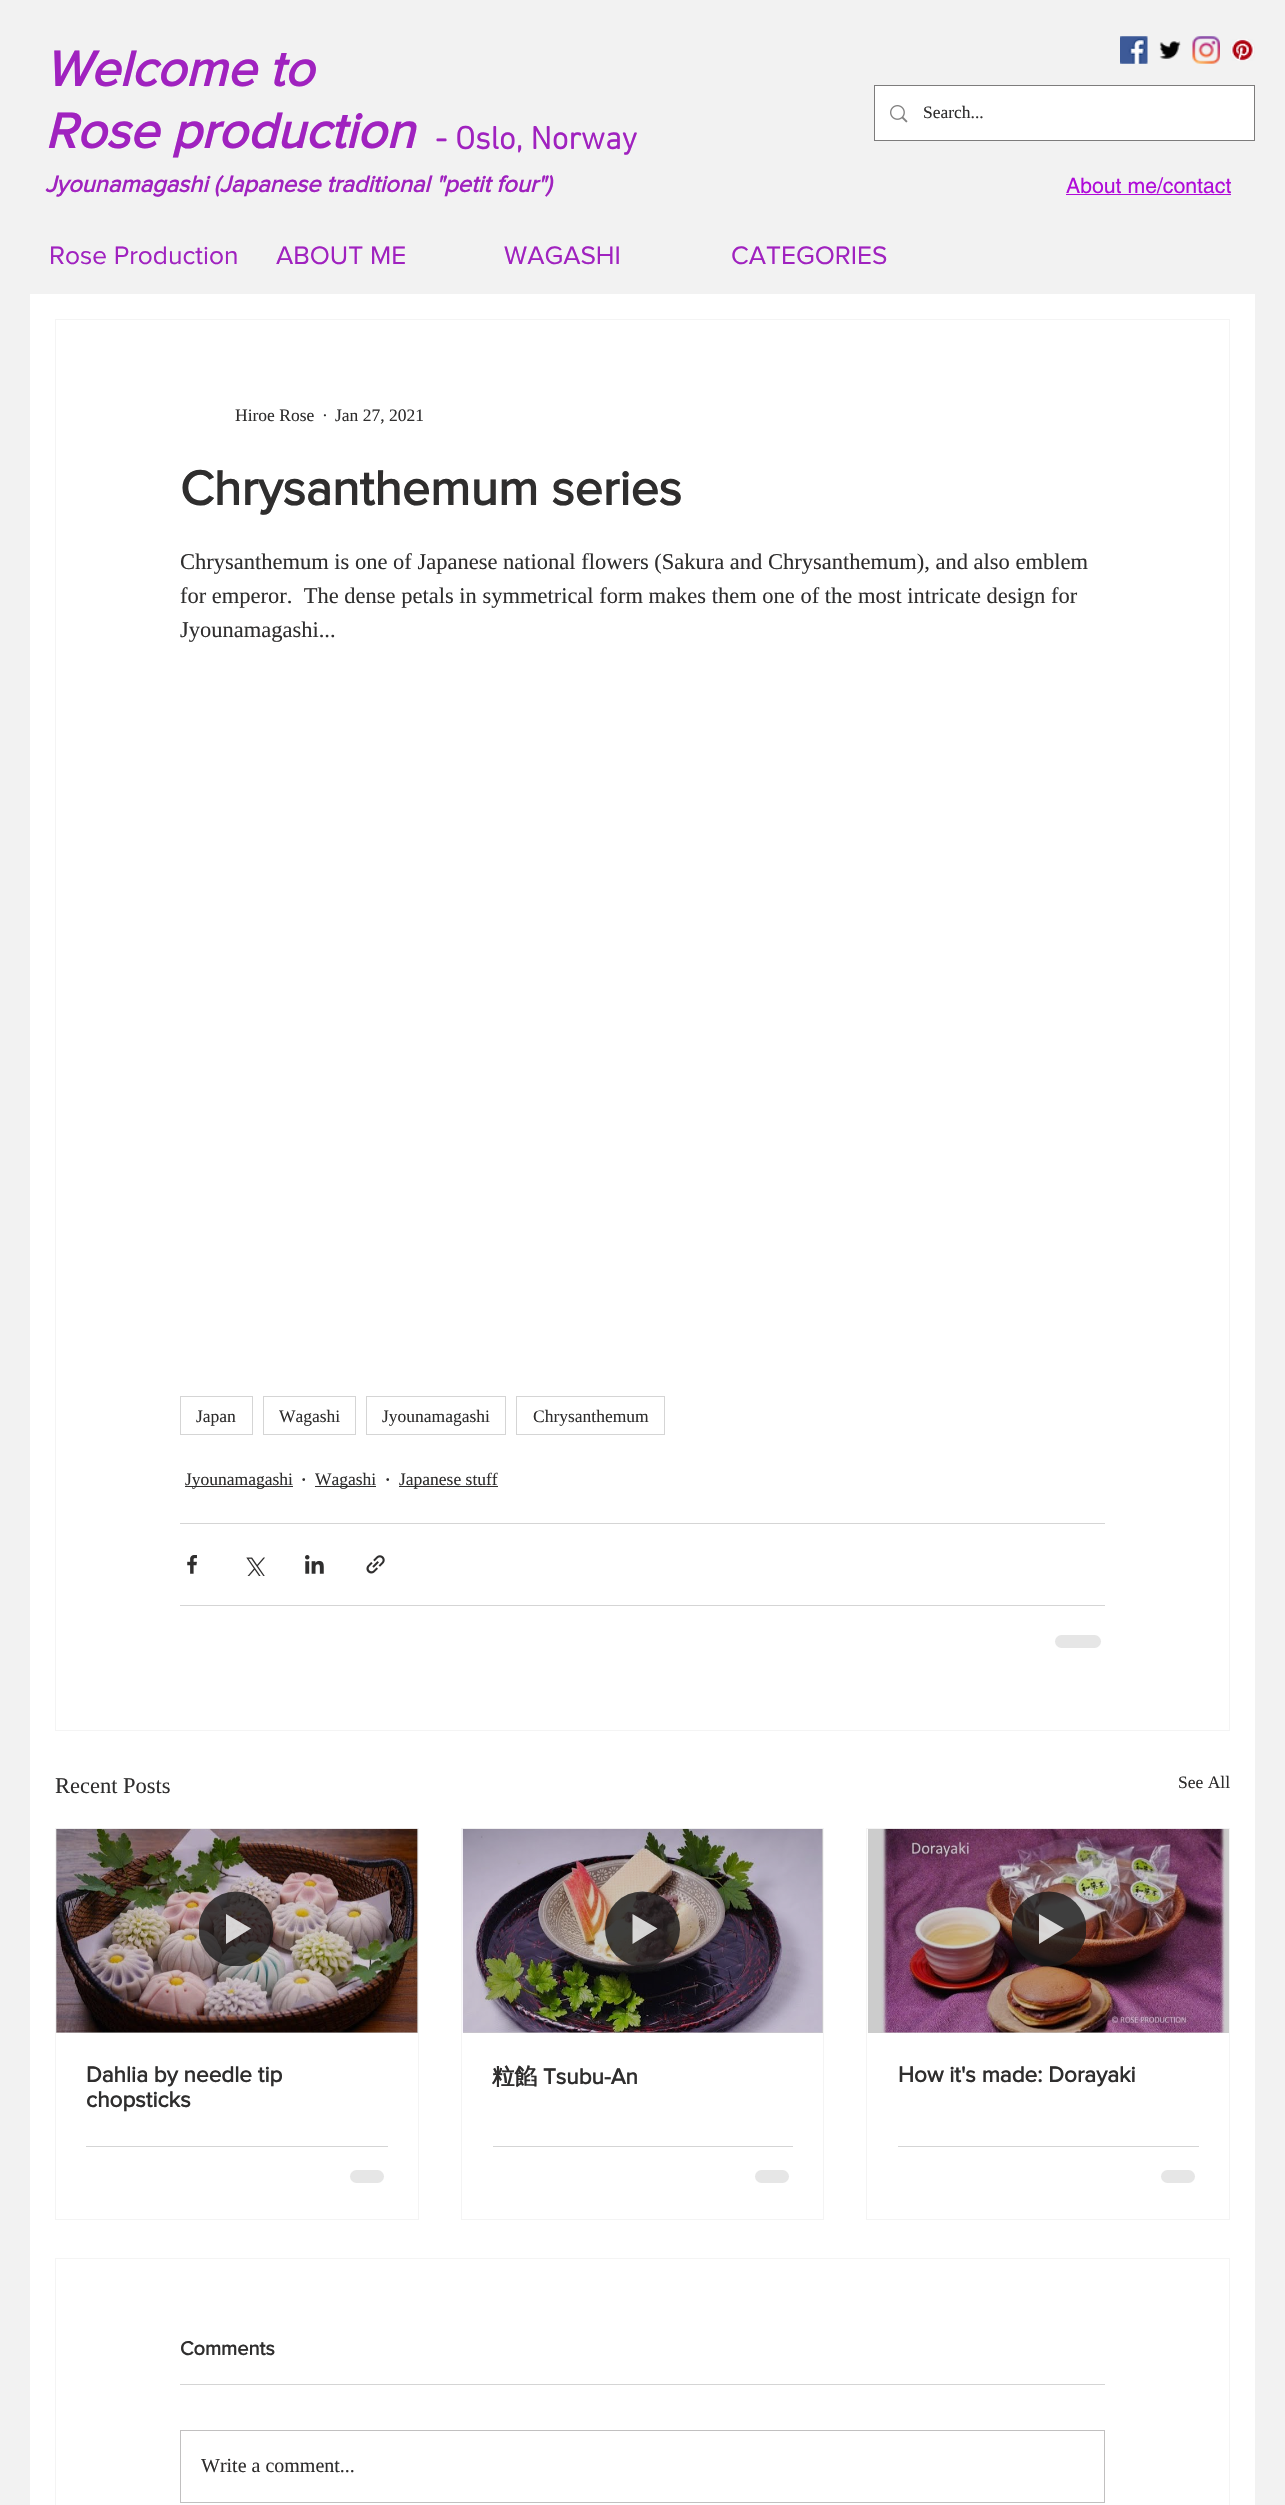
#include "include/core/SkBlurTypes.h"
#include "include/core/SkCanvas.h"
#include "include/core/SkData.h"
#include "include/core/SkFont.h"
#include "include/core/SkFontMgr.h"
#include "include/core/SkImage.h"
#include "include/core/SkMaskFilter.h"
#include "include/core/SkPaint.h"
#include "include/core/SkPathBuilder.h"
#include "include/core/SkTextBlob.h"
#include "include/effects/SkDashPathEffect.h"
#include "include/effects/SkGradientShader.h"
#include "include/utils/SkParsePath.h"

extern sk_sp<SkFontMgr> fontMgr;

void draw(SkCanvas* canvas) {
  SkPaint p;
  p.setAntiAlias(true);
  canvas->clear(SkColorSetRGB(242, 242, 242));
  p.setStyle(SkPaint::kStroke_Style);
  p.setStrokeWidth(1);
  p.setColor(SkColorSetRGB(125, 124, 124));
  canvas->drawRect(SkRect::MakeLTRB(874.5f, 85.5f, 1254.5f, 140.5f), p);
  p.setStyle(SkPaint::kFill_Style);
  p.setColor(SK_ColorWHITE);
  canvas->drawRect(SkRect::MakeLTRB(875, 86, 1254, 140), p);
  canvas->drawImageRect(SkImages::DeferredFromEncodedData(SkData::MakeFromFileName("images/1.png")), SkRect::MakeLTRB(890, 105, 908, 123), SkSamplingOptions());
  canvas->drawImageRect(SkImages::DeferredFromEncodedData(SkData::MakeFromFileName("images/2.png")), SkRect::MakeLTRB(1120, 36, 1148, 64), SkSamplingOptions());
  canvas->drawImageRect(SkImages::DeferredFromEncodedData(SkData::MakeFromFileName("images/3.png")), SkRect::MakeLTRB(1159, 41, 1181, 59), SkSamplingOptions());
  canvas->drawImageRect(SkImages::DeferredFromEncodedData(SkData::MakeFromFileName("images/4.png")), SkRect::MakeLTRB(1192, 36, 1220, 64), SkSamplingOptions());
  canvas->drawImageRect(SkImages::DeferredFromEncodedData(SkData::MakeFromFileName("images/5.png")), SkRect::MakeLTRB(1230, 39, 1255, 61), SkSamplingOptions());
  p.setColor(SkColorSetRGB(176, 11, 217));
  canvas->drawRect(SkRect::MakeLTRB(1066, 194, 1231, 195), p);
  p.setColor(SK_ColorWHITE);
  canvas->drawRect(SkRect::MakeLTRB(30, 294, 1255, 2505), p);
  p.setColor(SkColorSetRGB(204, 204, 204));
  canvas->drawRect(SkRect::MakeLTRB(868, 1829, 1229, 2033), p);
  canvas->drawRect(SkRect::MakeLTRB(463, 1829, 823, 2033), p);
  canvas->drawRect(SkRect::MakeLTRB(56, 1829, 418, 2033), p);
  p.setStyle(SkPaint::kStroke_Style);
  p.setColor(SkColorSetRGB(244, 244, 244));
  canvas->drawRect(SkRect::MakeLTRB(55.5f, 319.5f, 1229.5f, 1730.5f), p);
  p.setColor(SkColorSetRGB(213, 213, 213));
  canvas->drawRect(SkRect::MakeLTRB(180.5f, 1396.5f, 252.5f, 1434.5f), p);
  canvas->drawRect(SkRect::MakeLTRB(263.5f, 1396.5f, 355.5f, 1434.5f), p);
  canvas->drawRect(SkRect::MakeLTRB(366.5f, 1396.5f, 505.5f, 1434.5f), p);
  canvas->drawRect(SkRect::MakeLTRB(516.5f, 1396.5f, 664.5f, 1434.5f), p);
  p.setStyle(SkPaint::kFill_Style);
  p.setColor(SkColorSetRGB(47, 46, 46));
  canvas->drawRect(SkRect::MakeLTRB(185, 1486, 293, 1487), p);
  canvas->drawRect(SkRect::MakeLTRB(315, 1486, 376, 1487), p);
  canvas->drawRect(SkRect::MakeLTRB(399, 1486, 498, 1487), p);
  p.setColor(SkColorSetRGB(213, 213, 213));
  canvas->drawRect(SkRect::MakeLTRB(180, 1523, 1105, 1524), p);
  canvas->drawImageRect(SkImages::DeferredFromEncodedData(SkData::MakeFromFileName("images/6.png")), SkRect::MakeLTRB(187, 1555, 197, 1574), SkSamplingOptions());
  canvas->drawImageRect(SkImages::DeferredFromEncodedData(SkData::MakeFromFileName("images/7.png")), SkRect::MakeLTRB(246, 1557, 265, 1576), SkSamplingOptions());
  canvas->drawImageRect(SkImages::DeferredFromEncodedData(SkData::MakeFromFileName("images/8.png")), SkRect::MakeLTRB(305, 1555, 324, 1574), SkSamplingOptions());
  canvas->drawImageRect(SkImages::DeferredFromEncodedData(SkData::MakeFromFileName("images/9.png")), SkRect::MakeLTRB(366, 1555, 385, 1574), SkSamplingOptions());
  canvas->drawRect(SkRect::MakeLTRB(180, 1605, 1105, 1606), p);
  p.setColor(SkColorSetRGB(230, 230, 230));
  canvas->drawRoundRect(SkRect::MakeLTRB(1055, 1635, 1101, 1648), 6.5f, 6.5f, p);
  p.setStyle(SkPaint::kStroke_Style);
  p.setColor(SkColorSetRGB(244, 244, 244));
  canvas->drawRect(SkRect::MakeLTRB(55.5f, 1828.5f, 418.5f, 2219.5f), p);
  canvas->drawImageRect(SkImages::DeferredFromEncodedData(SkData::MakeFromFileName("images/10.png")), SkRect::MakeLTRB(56, 1828, 418, 2033), SkSamplingOptions());
  canvas->save();
  canvas->clipRect(SkRect::MakeLTRB(199, 1891, 274, 1966));
  p.setStyle(SkPaint::kFill_Style);
  p.setColor(SkColorSetARGB(204, 26, 26, 26));
  canvas->drawCircle(236, 1929, 37.5f, p);
  canvas->restore();
  p.setColor(SkColorSetARGB(204, 255, 255, 255));
  canvas->drawPath(SkPathBuilder().moveTo(226, 1914).lineTo(226, 1944).lineTo(251, 1928.5f).close().detach(), p);
  p.setColor(SkColorSetRGB(213, 213, 213));
  canvas->drawRect(SkRect::MakeLTRB(86, 2146, 388, 2147), p);
  p.setColor(SkColorSetRGB(230, 230, 230));
  canvas->drawRoundRect(SkRect::MakeLTRB(350, 2170, 384, 2183), 6.5f, 6.5f, p);
  p.setStyle(SkPaint::kStroke_Style);
  p.setColor(SkColorSetRGB(244, 244, 244));
  canvas->drawRect(SkRect::MakeLTRB(461.5f, 1828.5f, 823.5f, 2219.5f), p);
  canvas->drawImageRect(SkImages::DeferredFromEncodedData(SkData::MakeFromFileName("images/11.png")), SkRect::MakeLTRB(462, 1828, 823, 2033), SkSamplingOptions());
  canvas->save();
  canvas->clipRect(SkRect::MakeLTRB(605, 1891, 680, 1966));
  p.setStyle(SkPaint::kFill_Style);
  p.setColor(SkColorSetARGB(204, 26, 26, 26));
  canvas->drawCircle(642.5f, 1929, 37.5f, p);
  canvas->restore();
  p.setColor(SkColorSetARGB(204, 255, 255, 255));
  canvas->drawPath(SkPathBuilder().moveTo(632.5f, 1914).lineTo(632.5f, 1944).lineTo(657.5f, 1928.5f).close().detach(), p);
  p.setColor(SkColorSetRGB(213, 213, 213));
  canvas->drawRect(SkRect::MakeLTRB(493, 2146, 793, 2147), p);
  p.setColor(SkColorSetRGB(230, 230, 230));
  canvas->drawRoundRect(SkRect::MakeLTRB(755, 2170, 789, 2183), 6.5f, 6.5f, p);
  p.setStyle(SkPaint::kStroke_Style);
  p.setColor(SkColorSetRGB(244, 244, 244));
  canvas->drawRect(SkRect::MakeLTRB(866.5f, 1828.5f, 1229.5f, 2219.5f), p);
  canvas->drawImageRect(SkImages::DeferredFromEncodedData(SkData::MakeFromFileName("images/12.png")), SkRect::MakeLTRB(881, 1828, 1227, 2033), SkSamplingOptions());
  canvas->save();
  canvas->clipRect(SkRect::MakeLTRB(1011, 1891, 1086, 1966));
  p.setStyle(SkPaint::kFill_Style);
  p.setColor(SkColorSetARGB(204, 26, 26, 26));
  canvas->drawCircle(1049, 1929, 37.5f, p);
  canvas->restore();
  p.setColor(SkColorSetARGB(204, 255, 255, 255));
  canvas->drawPath(SkPathBuilder().moveTo(1039, 1914).lineTo(1039, 1944).lineTo(1064, 1928.5f).close().detach(), p);
  p.setColor(SkColorSetRGB(213, 213, 213));
  canvas->drawRect(SkRect::MakeLTRB(898, 2146, 1199, 2147), p);
  p.setColor(SkColorSetRGB(230, 230, 230));
  canvas->drawRoundRect(SkRect::MakeLTRB(1161, 2170, 1195, 2183), 6.5f, 6.5f, p);
  p.setStyle(SkPaint::kStroke_Style);
  p.setColor(SkColorSetRGB(244, 244, 244));
  canvas->drawRect(SkRect::MakeLTRB(55.5f, 2258.5f, 1229.5f, 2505.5f), p);
  p.setStyle(SkPaint::kFill_Style);
  p.setColor(SkColorSetRGB(213, 213, 213));
  canvas->drawRect(SkRect::MakeLTRB(180, 2384, 1105, 2385), p);
  p.setStyle(SkPaint::kStroke_Style);
  p.setColor(SkColorSetRGB(193, 192, 192));
  canvas->drawRect(SkRect::MakeLTRB(180.5f, 2430.5f, 1104.5f, 2502.5f), p);
  SkFont font1(fontMgr->matchFamilyStyle("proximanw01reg", SkFontStyle::BoldItalic()), 51.25f);
  font1.setSubpixel(true);
  p.setStyle(SkPaint::kFill_Style);
  p.setColor(SkColorSetRGB(160, 34, 191));
  canvas->drawString("Welcome to", 45, 86, font1, p);
  canvas->drawString("Rose production", 45, 148, font1, p);
  SkFont font2(fontMgr->matchFamilyStyle("proximanw01reg", SkFontStyle::BoldItalic()), 23.75f);
  font2.setSubpixel(true);
  canvas->drawString("Jyounamagashi (Japanese traditional \"petit four\")", 45, 192, font2, p);
  SkFont font3(fontMgr->matchFamilyStyle("Liberation Serif", SkFontStyle::Normal()), 17.5f);
  font3.setSubpixel(true);
  p.setColor(SkColorSetRGB(47, 46, 46));
  canvas->drawString("Search...", 923, 118, font3, p);
  SkFont font4(fontMgr->matchFamilyStyle("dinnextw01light", SkFontStyle::Bold()), 32.5f);
  font4.setSubpixel(true);
  p.setColor(SkColorSetRGB(160, 34, 191));
  canvas->drawString("- Oslo, Norway", 435, 149, font4, p);
  SkFont font5(fontMgr->matchFamilyStyle("helvetica", SkFontStyle::Normal()), 21.25f);
  font5.setSubpixel(true);
  p.setColor(SkColorSetRGB(176, 11, 217));
  canvas->drawString("About me/contact", 1066, 193, font5, p);
  SkFont font6(fontMgr->matchFamilyStyle("proximanw01reg", SkFontStyle::Normal()), 26.25f);
  font6.setSubpixel(true);
  p.setColor(SkColorSetRGB(160, 34, 191));
  canvas->drawString("Rose Production", 49, 264, font6, p);
  canvas->drawString("ABOUT ME", 276, 264, font6, p);
  canvas->drawString("WAGASHI", 504, 264, font6, p);
  canvas->drawString("CATEGORIES", 731, 264, font6, p);
  p.setColor(SkColorSetRGB(47, 46, 46));
  canvas->drawString("Hiroe Rose", 235, 421, font3, p);
  canvas->drawString("·", 322, 421, font3, p);
  canvas->drawString("Jan 27, 2021", 335, 421, font3, p);
  SkFont font7(fontMgr->matchFamilyStyle("proximanw01reg", SkFontStyle::Bold()), 50);
  font7.setSubpixel(true);
  canvas->drawString("Chrysanthemum series", 180, 505, font7, p);
  SkFont font8(fontMgr->matchFamilyStyle("Liberation Serif", SkFontStyle::Normal()), 22.5f);
  font8.setSubpixel(true);
  canvas->drawString("Chrysanthemum is one of Japanese national flowers (Sakura and Chrysanthemum), and also emblem", 180, 569, font8, p);
  canvas->drawString("for emperor.  The dense petals in symmetrical form makes them one of the most intricate design for", 180, 603, font8, p);
  canvas->drawString("Jyounamagashi...", 180, 637, font8, p);
  canvas->drawString("Japan", 196, 1422, font3, p);
  canvas->drawString("Wagashi", 279, 1422, font3, p);
  canvas->drawString("Jyounamagashi", 382, 1422, font3, p);
  canvas->drawString("Chrysanthemum", 533, 1422, font3, p);
  canvas->drawString("Jyounamagashi", 185, 1485, font3, p);
  canvas->drawString("·", 300, 1487, font8, p);
  canvas->drawString("Wagashi", 315, 1485, font3, p);
  canvas->drawString("·", 384, 1487, font8, p);
  canvas->drawString("Japanese stuff", 399, 1485, font3, p);
  canvas->drawString("Recent Posts", 55, 1793, font8, p);
  canvas->drawString("See All", 1178, 1788, font3, p);
  SkFont font9(fontMgr->matchFamilyStyle("proximanw01reg", SkFontStyle::Bold()), 22.5f);
  font9.setSubpixel(true);
  canvas->drawString("Dahlia by needle tip", 86, 2082, font9, p);
  canvas->drawString("chopsticks", 86, 2107, font9, p);
  SkFont font10(fontMgr->matchFamilyStyle("WenQuanYi Zen Hei", SkFontStyle::Bold()), 22.5f);
  font10.setSubpixel(true);
  canvas->drawString("粒餡", 492, 2084, font10, p);
  canvas->drawString("Tsubu-An", 543, 2084, font9, p);
  canvas->drawString("How it's made: Dorayaki", 898, 2082, font9, p);
  SkFont font11(fontMgr->matchFamilyStyle("proximanw01reg", SkFontStyle::Bold()), 20);
  font11.setSubpixel(true);
  canvas->drawString("Comments", 180, 2355, font11, p);
  SkFont font12(fontMgr->matchFamilyStyle("Liberation Serif", SkFontStyle::Normal()), 20);
  font12.setSubpixel(true);
  canvas->drawString("Write a comment...", 201, 2472, font12, p);
}
